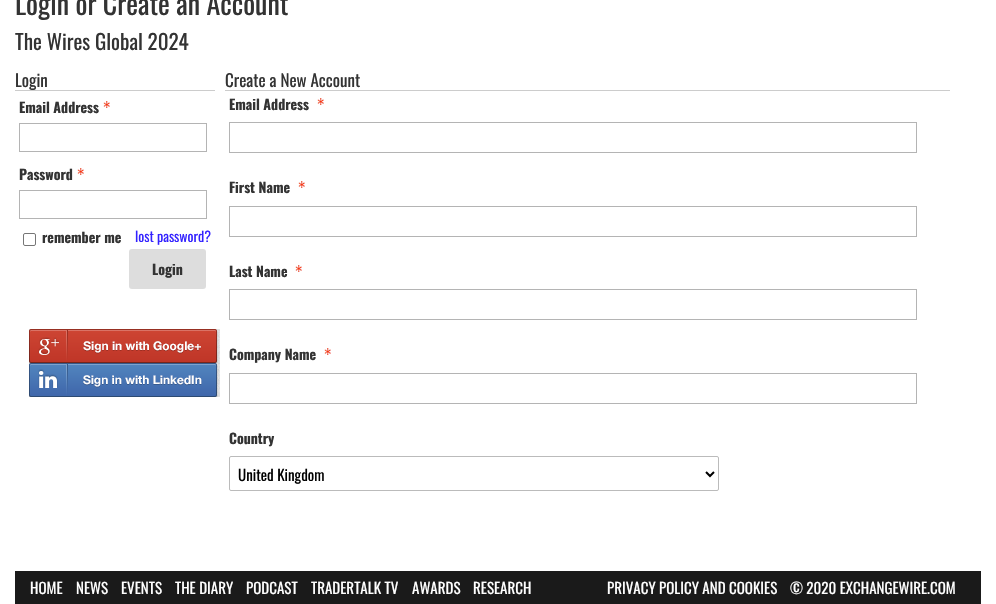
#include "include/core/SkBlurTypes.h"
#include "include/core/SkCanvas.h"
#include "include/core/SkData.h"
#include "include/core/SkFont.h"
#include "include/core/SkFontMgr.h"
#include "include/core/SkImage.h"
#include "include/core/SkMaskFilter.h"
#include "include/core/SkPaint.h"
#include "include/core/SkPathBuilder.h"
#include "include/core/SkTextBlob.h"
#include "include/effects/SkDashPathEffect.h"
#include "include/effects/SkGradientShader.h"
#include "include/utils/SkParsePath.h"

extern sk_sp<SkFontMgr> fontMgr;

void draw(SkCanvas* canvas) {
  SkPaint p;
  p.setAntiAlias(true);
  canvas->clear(SK_ColorWHITE);
  p.setColor(SkColorSetRGB(204, 204, 204));
  canvas->drawRect(SkRect::MakeLTRB(15, 90, 215, 91), p);
  canvas->drawImageRect(SkImages::DeferredFromEncodedData(SkData::MakeFromFileName("images/1.png")), SkRect::MakeLTRB(103, 101, 110, 108), SkSamplingOptions());
  p.setStyle(SkPaint::kStroke_Style);
  p.setStrokeWidth(1);
  p.setColor(SkColorSetRGB(180, 180, 180));
  canvas->drawRect(SkRect::MakeLTRB(19.5f, 123.5f, 206.5f, 151.5f), p);
  canvas->drawImageRect(SkImages::DeferredFromEncodedData(SkData::MakeFromFileName("images/1.png")), SkRect::MakeLTRB(77, 168, 84, 175), SkSamplingOptions());
  canvas->drawRect(SkRect::MakeLTRB(19.5f, 190.5f, 206.5f, 218.5f), p);
  p.setColor(SkColorSetRGB(118, 118, 118));
  canvas->drawRoundRect(SkRect::MakeLTRB(23.5f, 233.5f, 35.5f, 245.5f), 1.5f, 1.5f, p);
  p.setStyle(SkPaint::kFill_Style);
  p.setColor(SkColorSetRGB(221, 221, 221));
  canvas->drawRoundRect(SkRect::MakeLTRB(129, 249, 206, 289), 3, 3, p);
  canvas->drawImageRect(SkImages::DeferredFromEncodedData(SkData::MakeFromFileName("images/2.png")), SkRect::MakeLTRB(29, 329, 220, 363), SkSamplingOptions());
  canvas->drawImageRect(SkImages::DeferredFromEncodedData(SkData::MakeFromFileName("images/3.png")), SkRect::MakeLTRB(29, 363, 220, 397), SkSamplingOptions());
  p.setColor(SkColorSetRGB(204, 204, 204));
  canvas->drawRect(SkRect::MakeLTRB(225, 90, 950, 91), p);
  canvas->drawImageRect(SkImages::DeferredFromEncodedData(SkData::MakeFromFileName("images/1.png")), SkRect::MakeLTRB(317, 98, 324, 105), SkSamplingOptions());
  p.setStyle(SkPaint::kStroke_Style);
  p.setColor(SkColorSetRGB(180, 180, 180));
  canvas->drawRect(SkRect::MakeLTRB(229.5f, 122.5f, 916.5f, 152.5f), p);
  canvas->drawImageRect(SkImages::DeferredFromEncodedData(SkData::MakeFromFileName("images/1.png")), SkRect::MakeLTRB(298, 181, 305, 188), SkSamplingOptions());
  canvas->drawRect(SkRect::MakeLTRB(229.5f, 206.5f, 916.5f, 236.5f), p);
  canvas->drawImageRect(SkImages::DeferredFromEncodedData(SkData::MakeFromFileName("images/1.png")), SkRect::MakeLTRB(295, 265, 302, 272), SkSamplingOptions());
  canvas->drawRect(SkRect::MakeLTRB(229.5f, 289.5f, 916.5f, 319.5f), p);
  canvas->drawImageRect(SkImages::DeferredFromEncodedData(SkData::MakeFromFileName("images/1.png")), SkRect::MakeLTRB(324, 348, 331, 355), SkSamplingOptions());
  canvas->drawRect(SkRect::MakeLTRB(229.5f, 373.5f, 916.5f, 403.5f), p);
  p.setColor(SkColorSetRGB(187, 187, 187));
  canvas->drawRoundRect(SkRect::MakeLTRB(229.5f, 456.5f, 718.5f, 490.5f), 1.5f, 1.5f, p);
  p.setStrokeWidth(2);
  p.setColor(SK_ColorBLACK);
  canvas->drawPath(SkPathBuilder().moveTo(706, 472).lineTo(710, 476).lineTo(714, 472).detach(), p);
  p.setStyle(SkPaint::kFill_Style);
  p.setColor(SkColorSetRGB(26, 26, 26));
  canvas->drawRect(SkRect::MakeLTRB(15, 571, 981, 604), p);
  SkFont font1(fontMgr->matchFamilyStyle("Oswald", SkFontStyle::Normal()), 28);
  font1.setSubpixel(true);
  p.setColor(SkColorSetRGB(51, 51, 51));
  canvas->drawString("Login or Create an Account", 15, 15, font1, p);
  SkFont font2(fontMgr->matchFamilyStyle("Oswald", SkFontStyle::Normal()), 21);
  font2.setSubpixel(true);
  canvas->drawString("The Wires Global 2024", 15, 50, font2, p);
  SkFont font3(fontMgr->matchFamilyStyle("Oswald", SkFontStyle::Normal()), 17);
  font3.setSubpixel(true);
  canvas->drawString("Login", 15, 87, font3, p);
  SkFont font4(fontMgr->matchFamilyStyle("Oswald", SkFontStyle::Bold()), 14);
  font4.setSubpixel(true);
  canvas->drawString("Email Address", 19, 113, font4, p);
  canvas->drawString("Password", 19, 180, font4, p);
  canvas->drawString("remember me", 42, 243, font4, p);
  SkFont font5(fontMgr->matchFamilyStyle("Oswald", SkFontStyle::Normal()), 14);
  font5.setSubpixel(true);
  p.setColor(SkColorSetRGB(51, 34, 255));
  canvas->drawString("lost password?", 135, 242, font5, p);
  p.setColor(SkColorSetRGB(51, 51, 51));
  canvas->drawString("Login", 152, 275, font4, p);
  canvas->drawString("Create a New Account", 225, 87, font3, p);
  canvas->drawString("Email Address", 229, 110, font4, p);
  canvas->drawString("First Name", 229, 193, font4, p);
  canvas->drawString("Last Name", 229, 277, font4, p);
  canvas->drawString("Company Name", 229, 360, font4, p);
  canvas->drawString("Country", 229, 444, font4, p);
  SkFont font6(fontMgr->matchFamilyStyle("Oswald", SkFontStyle::Normal()), 15);
  font6.setSubpixel(true);
  p.setColor(SK_ColorBLACK);
  canvas->drawString("United Kingdom", 238, 481, font6, p);
  p.setColor(SK_ColorWHITE);
  canvas->drawString("HOME", 30, 594, font6, p);
  canvas->drawString("NEWS", 76, 594, font6, p);
  canvas->drawString("EVENTS", 121, 594, font6, p);
  canvas->drawString("THE DIARY", 175, 594, font6, p);
  canvas->drawString("PODCAST", 246, 594, font6, p);
  canvas->drawString("TRADERTALK TV", 311, 594, font6, p);
  canvas->drawString("AWARDS", 412, 594, font6, p);
  canvas->drawString("RESEARCH", 473, 594, font6, p);
  canvas->drawString("PRIVACY POLICY AND COOKIES", 607, 594, font6, p);
  canvas->drawString("© 2020 EXCHANGEWIRE.COM", 790, 594, font6, p);
}
